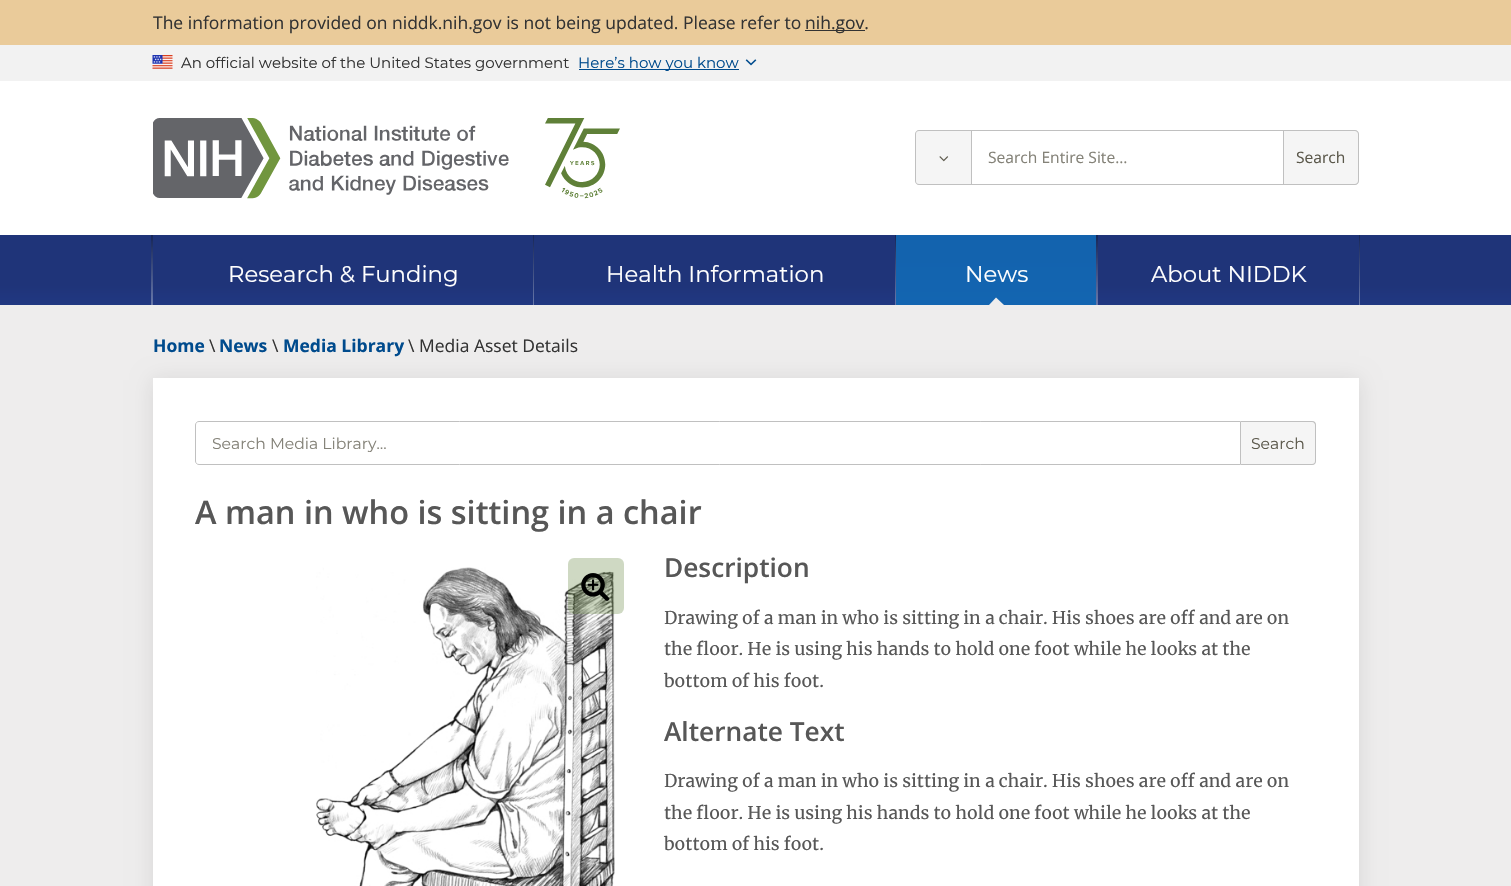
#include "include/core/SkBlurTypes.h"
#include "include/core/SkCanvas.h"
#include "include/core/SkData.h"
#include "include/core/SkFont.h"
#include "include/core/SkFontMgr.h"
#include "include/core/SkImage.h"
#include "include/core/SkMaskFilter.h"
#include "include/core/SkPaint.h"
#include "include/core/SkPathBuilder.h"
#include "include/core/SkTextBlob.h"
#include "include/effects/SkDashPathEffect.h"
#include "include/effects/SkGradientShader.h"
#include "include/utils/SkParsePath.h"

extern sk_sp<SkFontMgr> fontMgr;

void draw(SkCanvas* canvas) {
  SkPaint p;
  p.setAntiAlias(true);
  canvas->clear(SkColorSetRGB(238, 237, 237));
  p.setColor(SkColorSetRGB(234, 203, 154));
  canvas->drawRect(SkRect::MakeLTRB(0, 0, 1511, 45), p);
  p.setColor(SkColorSetRGB(51, 51, 51));
  canvas->drawRect(SkRect::MakeLTRB(805, 30, 865, 31), p);
  p.setColor(SkColorSetRGB(242, 242, 242));
  canvas->drawRect(SkRect::MakeLTRB(0, 45, 1511, 81), p);
  canvas->drawImageRect(SkImages::DeferredFromEncodedData(SkData::MakeFromFileName("images/1.png")), SkRect::MakeLTRB(152, 55, 173, 69), SkSamplingOptions());
  p.setColor(SkColorSetRGB(0, 75, 141));
  canvas->drawRect(SkRect::MakeLTRB(579, 69, 739, 70), p);
  canvas->drawImageRect(SkImages::DeferredFromEncodedData(SkData::MakeFromFileName("images/2.png")), SkRect::MakeLTRB(745, 59, 757, 66), SkSamplingOptions());
  p.setColor(SK_ColorWHITE);
  canvas->drawRect(SkRect::MakeLTRB(0, 81, 1511, 235), p);
  canvas->drawImageRect(SkImages::DeferredFromEncodedData(SkData::MakeFromFileName("images/3.png")), SkRect::MakeLTRB(153, 118, 509, 199), SkSamplingOptions());
  canvas->drawImageRect(SkImages::DeferredFromEncodedData(SkData::MakeFromFileName("images/4.png")), SkRect::MakeLTRB(545, 118, 620, 199), SkSamplingOptions());
  p.setColor(SkColorSetRGB(245, 245, 245));
  canvas->drawPath(SkPathBuilder().moveTo(919, 130).lineTo(971, 130).lineTo(971, 185).lineTo(919, 185).cubicTo(917, 185, 915, 183, 915, 181).lineTo(915, 134).cubicTo(915, 132, 917, 130, 919, 130).close().detach(), p);
  p.setColor(SkColorSetRGB(192, 192, 192));
  canvas->drawPath(SkPathBuilder(SkPathFillType::kEvenOdd).moveTo(919, 130).lineTo(971, 130).lineTo(971, 185).lineTo(919, 185).cubicTo(917, 185, 915, 183, 915, 181).lineTo(915, 134).cubicTo(915, 132, 917, 130, 919, 130).close().moveTo(919, 131).lineTo(971, 131).lineTo(971, 184).lineTo(919, 184).cubicTo(917, 184, 916, 183, 916, 181).lineTo(916, 134).cubicTo(916, 132, 917, 131, 919, 131).close().detach(), p);
  canvas->drawImageRect(SkImages::DeferredFromEncodedData(SkData::MakeFromFileName("images/5.png")), SkRect::MakeLTRB(939, 156, 949, 162), SkSamplingOptions());
  p.setStyle(SkPaint::kStroke_Style);
  p.setStrokeWidth(1);
  canvas->drawRect(SkRect::MakeLTRB(971.5f, 130.5f, 1283.5f, 184.5f), p);
  p.setStyle(SkPaint::kFill_Style);
  p.setColor(SkColorSetRGB(245, 245, 245));
  canvas->drawPath(SkPathBuilder().moveTo(1284, 130).lineTo(1355, 130).cubicTo(1357, 130, 1359, 132, 1359, 134).lineTo(1359, 181).cubicTo(1359, 183, 1357, 185, 1355, 185).lineTo(1284, 185).close().detach(), p);
  p.setColor(SkColorSetRGB(192, 192, 192));
  canvas->drawPath(SkPathBuilder(SkPathFillType::kEvenOdd).moveTo(1284, 130).lineTo(1355, 130).cubicTo(1357, 130, 1359, 132, 1359, 134).lineTo(1359, 181).cubicTo(1359, 183, 1357, 185, 1355, 185).lineTo(1284, 185).close().moveTo(1284, 131).lineTo(1355, 131).cubicTo(1356, 131, 1358, 132, 1358, 134).lineTo(1358, 181).cubicTo(1358, 183, 1356, 184, 1355, 184).lineTo(1284, 184).close().detach(), p);
  {
    const SkColor colors[] = {SkColorSetRGB(31, 52, 121), SkColorSetRGB(33, 56, 130), SK_ColorWHITE};
    const float stops[] = {0.18f, 0.25f, 0.75f};
    const SkPoint ends[] = {{0.6f, 235}, {0.6f, 515}};
    p.setShader(SkGradientShader::MakeLinear(ends, colors, stops, 3, SkTileMode::kClamp));
    p.setAlpha(255);
  }
  canvas->drawRect(SkRect::MakeLTRB(0, 235, 1511, 305), p);
  {
    const SkColor colors[] = {SkColorSetRGB(22, 38, 88), SkColorSetRGB(104, 120, 170), SkColorSetRGB(213, 213, 214)};
    const float stops[] = {0, 0.25f, 0.75f};
    const SkPoint ends[] = {{152, 235}, {152, 515}};
    p.setShader(SkGradientShader::MakeLinear(ends, colors, stops, 3, SkTileMode::kClamp));
    p.setAlpha(255);
  }
  canvas->drawRect(SkRect::MakeLTRB(151, 235, 1360, 305), p);
  {
    const SkColor colors[] = {SkColorSetRGB(31, 52, 121), SkColorSetRGB(33, 56, 130), SK_ColorWHITE};
    const float stops[] = {0.18f, 0.25f, 0.75f};
    const SkPoint ends[] = {{153, 235}, {153, 515}};
    p.setShader(SkGradientShader::MakeLinear(ends, colors, stops, 3, SkTileMode::kClamp));
    p.setAlpha(255);
  }
  canvas->drawRect(SkRect::MakeLTRB(153, 235, 533, 305), p);
  {
    const SkColor colors[] = {SkColorSetRGB(31, 52, 121), SkColorSetRGB(33, 56, 130), SK_ColorWHITE};
    const float stops[] = {0.18f, 0.25f, 0.75f};
    const SkPoint ends[] = {{534, 235}, {534, 515}};
    p.setShader(SkGradientShader::MakeLinear(ends, colors, stops, 3, SkTileMode::kClamp));
    p.setAlpha(255);
  }
  canvas->drawRect(SkRect::MakeLTRB(534, 235, 895, 305), p);
  {
    const SkColor colors[] = {SkColorSetRGB(19, 99, 174), SkColorSetRGB(19, 101, 177), SkColorSetRGB(19, 101, 177), SK_ColorWHITE};
    const float stops[] = {0.07f, 0.25f, 0.77f, 0.77f};
    const SkPoint ends[] = {{897, 235}, {897, 515}};
    p.setShader(SkGradientShader::MakeLinear(ends, colors, stops, 4, SkTileMode::kClamp));
    p.setAlpha(255);
  }
  canvas->drawRect(SkRect::MakeLTRB(896, 235, 1096, 305), p);
  p.setShader(nullptr);
  p.setColor(SkColorSetRGB(238, 237, 237));
  canvas->drawPath(SkPathBuilder().moveTo(1004, 305).lineTo(989, 305).lineTo(996, 297.5f).close().detach(), p);
  {
    const SkColor colors[] = {SkColorSetRGB(31, 52, 121), SkColorSetRGB(33, 56, 130), SK_ColorWHITE};
    const float stops[] = {0.18f, 0.25f, 0.75f};
    const SkPoint ends[] = {{1098, 235}, {1098, 515}};
    p.setShader(SkGradientShader::MakeLinear(ends, colors, stops, 3, SkTileMode::kClamp));
    p.setAlpha(255);
  }
  canvas->drawRect(SkRect::MakeLTRB(1098, 235, 1359, 305), p);
  p.setShader(nullptr);
  p.setColor(SkColorSetARGB(26, 0, 0, 0));
  p.setMaskFilter(SkMaskFilter::MakeBlur(kNormal_SkBlurStyle, 10));
  canvas->drawRect(SkRect::MakeLTRB(153, 380, 1359, 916), p);
  p.setMaskFilter(nullptr);
  p.setColor(SK_ColorWHITE);
  canvas->drawRect(SkRect::MakeLTRB(153, 378, 1359, 886), p);
  p.setStyle(SkPaint::kStroke_Style);
  p.setColor(SkColorSetRGB(192, 192, 192));
  canvas->drawPath(SkPathBuilder().moveTo(199, 421.5f).lineTo(1240.5f, 421.5f).lineTo(1240.5f, 464.5f).lineTo(199, 464.5f).cubicTo(197, 464.5f, 195.5f, 463, 195.5f, 461).lineTo(195.5f, 425).cubicTo(195.5f, 423, 197, 421.5f, 199, 421.5f).close().detach(), p);
  p.setStyle(SkPaint::kFill_Style);
  p.setColor(SkColorSetRGB(245, 245, 245));
  canvas->drawPath(SkPathBuilder().moveTo(1241, 421).lineTo(1312, 421).cubicTo(1314, 421, 1316, 423, 1316, 425).lineTo(1316, 461).cubicTo(1316, 463, 1314, 465, 1312, 465).lineTo(1241, 465).close().detach(), p);
  p.setColor(SkColorSetRGB(192, 192, 192));
  canvas->drawPath(SkPathBuilder(SkPathFillType::kEvenOdd).moveTo(1241, 421).lineTo(1312, 421).cubicTo(1315, 421, 1316, 423, 1316, 425).lineTo(1316, 461).cubicTo(1316, 463, 1315, 465, 1312, 465).lineTo(1241, 465).close().moveTo(1241, 422).lineTo(1312, 422).cubicTo(1314, 422, 1315, 424, 1315, 425).lineTo(1315, 461).cubicTo(1315, 463, 1314, 464, 1312, 464).lineTo(1241, 464).close().detach(), p);
  canvas->drawImageRect(SkImages::DeferredFromEncodedData(SkData::MakeFromFileName("images/7.png")), SkRect::MakeLTRB(316, 567, 615, 886), SkSamplingOptions());
  p.setColor(SkColorSetARGB(77, 95, 128, 56));
  canvas->drawRoundRect(SkRect::MakeLTRB(568, 558, 624, 614), 6, 6, p);
  canvas->drawImageRect(SkImages::DeferredFromEncodedData(SkData::MakeFromFileName("images/6.png")), SkRect::MakeLTRB(581, 573, 610, 601), SkSamplingOptions());
  SkFont font1(fontMgr->matchFamilyStyle("Open Sans", SkFontStyle::Normal()), 17.5f);
  font1.setSubpixel(true);
  p.setColor(SkColorSetRGB(51, 51, 51));
  canvas->drawString("The information provided on niddk.nih.gov is not being updated. Please refer to", 153, 29, font1, p);
  canvas->drawString("nih.gov.", 805, 29, font1, p);
  SkFont font2(fontMgr->matchFamilyStyle("Montserrat", SkFontStyle(100, SkFontStyle::kNormal_Width, SkFontStyle::kUpright_Slant)), 15);
  font2.setSubpixel(true);
  canvas->drawString("An official website of the United States government", 181, 68, font2, p);
  p.setColor(SkColorSetRGB(0, 75, 141));
  canvas->drawString("Here’s how you know", 578, 68, font2, p);
  SkFont font3(fontMgr->matchFamilyStyle("Open Sans", SkFontStyle::Normal()), 15.6f);
  font3.setSubpixel(true);
  p.setColor(SkColorSetRGB(132, 130, 120));
  canvas->drawString("Search Entire Site…", 988, 163, font3, p);
  p.setColor(SkColorSetRGB(91, 88, 75));
  canvas->drawString("Search", 1296, 163, font3, p);
  SkFont font4(fontMgr->matchFamilyStyle("Montserrat", SkFontStyle(100, SkFontStyle::kNormal_Width, SkFontStyle::kUpright_Slant)), 22.75f);
  font4.setSubpixel(true);
  p.setColor(SK_ColorWHITE);
  canvas->drawString("Research & Funding", 228, 282, font4, p);
  canvas->drawString("Health Information", 606, 282, font4, p);
  canvas->drawString("News", 965, 282, font4, p);
  canvas->drawString("About NIDDK", 1151, 282, font4, p);
  SkFont font5(fontMgr->matchFamilyStyle("Open Sans", SkFontStyle::Bold()), 17.5f);
  font5.setSubpixel(true);
  p.setColor(SkColorSetRGB(0, 75, 141));
  canvas->drawString("Home", 153, 352, font5, p);
  p.setColor(SkColorSetRGB(51, 51, 51));
  canvas->drawString("\\", 209, 352, font1, p);
  p.setColor(SkColorSetRGB(0, 75, 141));
  canvas->drawString("News", 219, 352, font5, p);
  p.setColor(SkColorSetRGB(51, 51, 51));
  canvas->drawString("\\", 272, 352, font1, p);
  p.setColor(SkColorSetRGB(0, 75, 141));
  canvas->drawString("Media Library", 283, 352, font5, p);
  p.setColor(SkColorSetRGB(51, 51, 51));
  canvas->drawString("\\", 408, 352, font1, p);
  canvas->drawString("Media Asset Details", 419, 352, font1, p);
  canvas->save();
  canvas->clipRect(SkRect::MakeLTRB(213, 434, 1225, 453));
  SkFont font6(fontMgr->matchFamilyStyle("Montserrat", SkFontStyle(100, SkFontStyle::kNormal_Width, SkFontStyle::kUpright_Slant)), 15.6f);
  font6.setSubpixel(true);
  p.setColor(SkColorSetRGB(132, 130, 120));
  canvas->drawString("Search Media Library…", 212, 449, font6, p);
  canvas->restore();
  p.setColor(SkColorSetRGB(91, 88, 75));
  canvas->drawString("Search", 1251, 449, font6, p);
  SkFont font7(fontMgr->matchFamilyStyle("Open Sans", SkFontStyle(600, SkFontStyle::kNormal_Width, SkFontStyle::kUpright_Slant)), 32.5f);
  font7.setSubpixel(true);
  p.setColor(SkColorSetRGB(87, 87, 87));
  canvas->drawString("A man in who is sitting in a chair", 195, 524, font7, p);
  SkFont font8(fontMgr->matchFamilyStyle("Open Sans", SkFontStyle(600, SkFontStyle::kNormal_Width, SkFontStyle::kUpright_Slant)), 26.25f);
  font8.setSubpixel(true);
  canvas->drawString("Description", 664, 577, font8, p);
  SkFont font9(fontMgr->matchFamilyStyle("Merriweather", SkFontStyle::Normal()), 17.5f);
  font9.setSubpixel(true);
  canvas->drawString("Drawing of a man in who is sitting in a chair. His shoes are off and are on", 664, 624, font9, p);
  canvas->drawString("the floor. He is using his hands to hold one foot while he looks at the", 664, 655, font9, p);
  canvas->drawString("bottom of his foot.", 664, 687, font9, p);
  canvas->drawString("Alternate Text", 664, 741, font8, p);
  canvas->drawString("Drawing of a man in who is sitting in a chair. His shoes are off and are on", 664, 787, font9, p);
  canvas->drawString("the floor. He is using his hands to hold one foot while he looks at the", 664, 819, font9, p);
  canvas->drawString("bottom of his foot.", 664, 850, font9, p);
}
